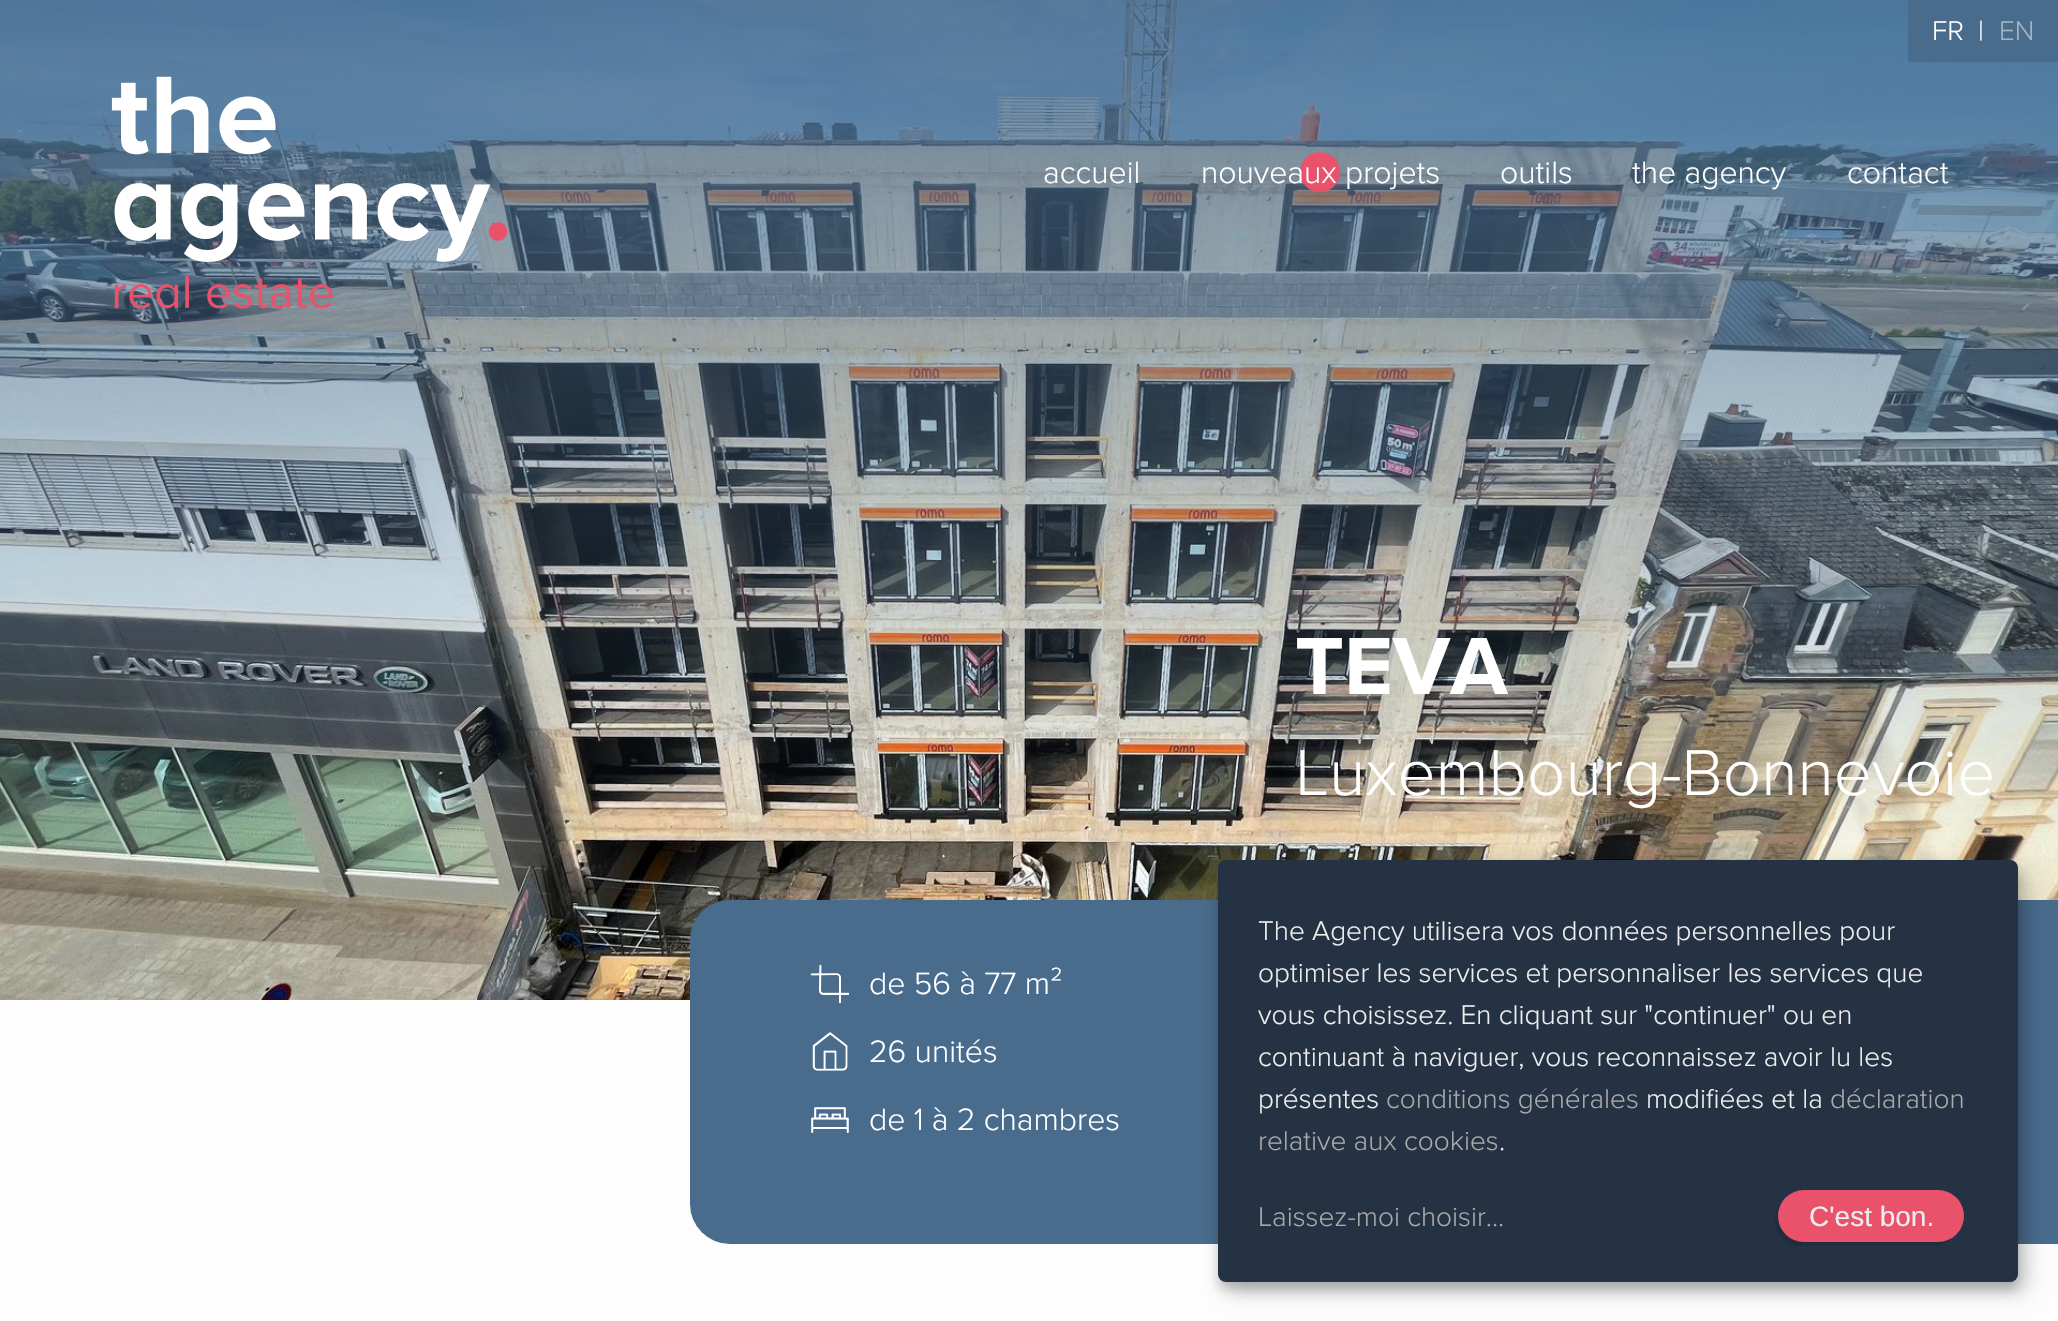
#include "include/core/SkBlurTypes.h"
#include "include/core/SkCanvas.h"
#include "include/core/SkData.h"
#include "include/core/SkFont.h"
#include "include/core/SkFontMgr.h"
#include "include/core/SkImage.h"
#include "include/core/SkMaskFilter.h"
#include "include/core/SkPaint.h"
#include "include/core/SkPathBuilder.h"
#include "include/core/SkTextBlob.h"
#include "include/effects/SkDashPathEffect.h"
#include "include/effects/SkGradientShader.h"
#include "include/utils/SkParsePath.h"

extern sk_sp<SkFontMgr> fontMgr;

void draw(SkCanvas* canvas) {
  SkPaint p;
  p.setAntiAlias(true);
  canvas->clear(SkColorSetRGB(253, 253, 253));
  canvas->drawImageRect(SkImages::DeferredFromEncodedData(SkData::MakeFromFileName("images/2.png")), SkRect::MakeLTRB(0, 0, 2058, 1000), SkSamplingOptions());
  p.setColor(SkColorSetRGB(73, 107, 140));
  canvas->drawRect(SkRect::MakeLTRB(1908, 0, 2058, 62), p);
  canvas->drawImageRect(SkImages::DeferredFromEncodedData(SkData::MakeFromFileName("images/1.png")), SkRect::MakeLTRB(111, 76, 508, 309), SkSamplingOptions());
  p.setColor(SkColorSetRGB(234, 81, 107));
  canvas->drawCircle(1320, 172, 20, p);
  p.setColor(SkColorSetRGB(73, 107, 140));
  canvas->drawRoundRect(SkRect::MakeLTRB(690, 900, 1930, 1244), 40, 40, p);
  canvas->drawImageRect(SkImages::DeferredFromEncodedData(SkData::MakeFromFileName("images/3.png")), SkRect::MakeLTRB(810, 964, 850, 1004), SkSamplingOptions());
  canvas->drawImageRect(SkImages::DeferredFromEncodedData(SkData::MakeFromFileName("images/4.png")), SkRect::MakeLTRB(812, 1032, 848, 1071), SkSamplingOptions());
  canvas->drawImageRect(SkImages::DeferredFromEncodedData(SkData::MakeFromFileName("images/5.png")), SkRect::MakeLTRB(811, 1107, 849, 1133), SkSamplingOptions());
  canvas->drawRect(SkRect::MakeLTRB(2018, 900, 2058, 1244), p);
  p.setColor(SkColorSetARGB(48, 0, 0, 0));
  p.setMaskFilter(SkMaskFilter::MakeBlur(kNormal_SkBlurStyle, 10));
  canvas->drawRoundRect(SkRect::MakeLTRB(1228, 870, 2028, 1292), 8, 8, p);
  p.setMaskFilter(nullptr);
  p.setColor(SkColorSetARGB(51, 0, 0, 0));
  p.setMaskFilter(SkMaskFilter::MakeBlur(kNormal_SkBlurStyle, 6));
  canvas->drawRoundRect(SkRect::MakeLTRB(1218, 868, 2018, 1290), 8, 8, p);
  p.setMaskFilter(nullptr);
  p.setColor(SkColorSetRGB(36, 50, 67));
  canvas->drawRoundRect(SkRect::MakeLTRB(1218, 860, 2018, 1282), 8, 8, p);
  p.setColor(SkColorSetRGB(32, 45, 60));
  canvas->drawPath(SkPathBuilder().moveTo(1784, 1200).cubicTo(1778, 1204, 1774, 1212, 1774, 1220).cubicTo(1774, 1234, 1786, 1246, 1800, 1246).lineTo(1934, 1246).cubicTo(1942, 1246, 1950, 1242, 1954, 1236).cubicTo(1950, 1240, 1944, 1242, 1938, 1242).lineTo(1804, 1242).cubicTo(1790, 1242, 1778, 1230, 1778, 1216).cubicTo(1778, 1210, 1780, 1204, 1784, 1200).close().detach(), p);
  p.setColor(SkColorSetRGB(234, 81, 107));
  canvas->drawRoundRect(SkRect::MakeLTRB(1778, 1190, 1964, 1242), 26, 26, p);
  SkFont font1(fontMgr->matchFamilyStyle("Proxima Nova", SkFontStyle(300, SkFontStyle::kNormal_Width, SkFontStyle::kUpright_Slant)), 28);
  font1.setSubpixel(true);
  p.setColor(SK_ColorWHITE);
  canvas->drawString("FR", 1932, 40, font1, p);
  canvas->drawString("|", 1978, 40, font1, p);
  p.setColor(SkColorSetRGB(164, 181, 198));
  canvas->drawString("EN", 1999, 40, font1, p);
  SkFont font2(fontMgr->matchFamilyStyle("Proxima Nova", SkFontStyle(300, SkFontStyle::kNormal_Width, SkFontStyle::kUpright_Slant)), 32);
  font2.setSubpixel(true);
  p.setColor(SK_ColorWHITE);
  canvas->drawString("accueil", 1043, 183, font2, p);
  canvas->drawString("nouveaux projets", 1201, 183, font2, p);
  canvas->drawString("outils", 1500, 183, font2, p);
  canvas->drawString("the agency", 1632, 183, font2, p);
  canvas->drawString("contact", 1847, 183, font2, p);
  SkFont font3(fontMgr->matchFamilyStyle("Proxima Nova", SkFontStyle::Bold()), 84);
  font3.setSubpixel(true);
  canvas->drawString("TEVA", 1295, 694, font3, p);
  SkFont font4(fontMgr->matchFamilyStyle("Proxima Nova", SkFontStyle(300, SkFontStyle::kNormal_Width, SkFontStyle::kUpright_Slant)), 67.25f);
  font4.setSubpixel(true);
  canvas->drawString("Luxembourg-Bonnevoie", 1295, 795, font4, p);
  canvas->drawString("de 56 à 77 m²", 869, 994, font2, p);
  canvas->drawString("26 unités", 869, 1062, font2, p);
  canvas->drawString("de 1 à 2 chambres", 869, 1130, font2, p);
  p.setColor(SkColorSetRGB(238, 238, 238));
  canvas->drawString("The Agency utilisera vos données personnelles pour", 1258, 940, font1, p);
  canvas->drawString("optimiser les services et personnaliser les services que", 1258, 982, font1, p);
  canvas->drawString("vous choisissez. En cliquant sur \"continuer\" ou en", 1258, 1024, font1, p);
  canvas->drawString("continuant à naviguer, vous reconnaissez avoir lu les", 1258, 1066, font1, p);
  canvas->drawString("présentes", 1258, 1108, font1, p);
  p.setColor(SkColorSetRGB(170, 170, 170));
  canvas->drawString("conditions générales", 1386, 1108, font1, p);
  p.setColor(SkColorSetRGB(238, 238, 238));
  canvas->drawString("modifiées et la", 1646, 1108, font1, p);
  p.setColor(SkColorSetRGB(170, 170, 170));
  canvas->drawString("déclaration", 1830, 1108, font1, p);
  canvas->drawString("relative aux cookies", 1258, 1150, font1, p);
  p.setColor(SkColorSetRGB(238, 238, 238));
  canvas->drawString(".", 1499, 1150, font1, p);
  p.setColor(SkColorSetRGB(170, 170, 170));
  canvas->drawString("Laissez-moi choisir...", 1258, 1226, font1, p);
  SkFont font5(fontMgr->matchFamilyStyle("Liberation Sans", SkFontStyle::Normal()), 28);
  font5.setSubpixel(true);
  p.setColor(SkColorSetRGB(238, 238, 238));
  canvas->drawString("C'est bon.", 1809, 1226, font5, p);
}
